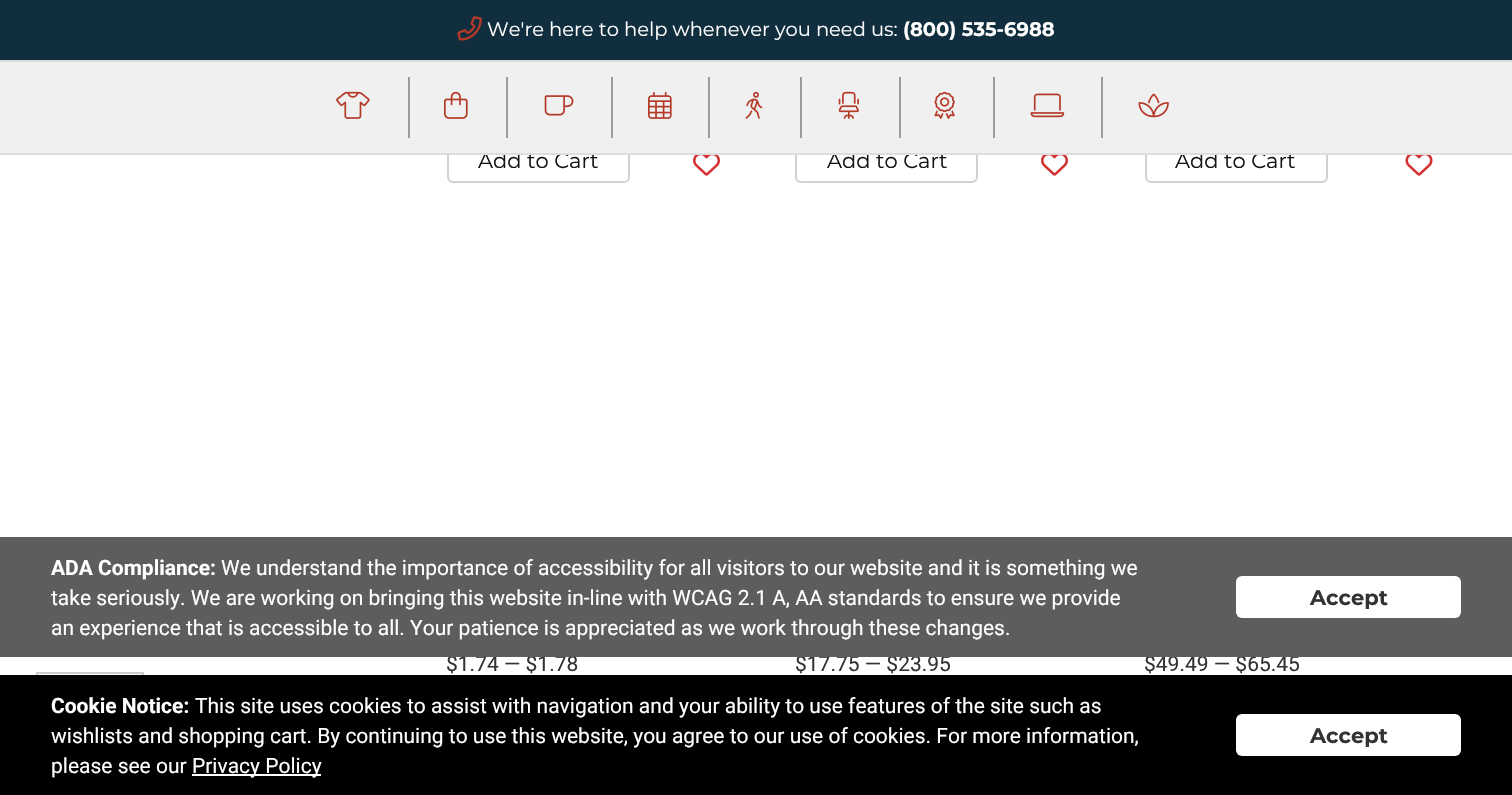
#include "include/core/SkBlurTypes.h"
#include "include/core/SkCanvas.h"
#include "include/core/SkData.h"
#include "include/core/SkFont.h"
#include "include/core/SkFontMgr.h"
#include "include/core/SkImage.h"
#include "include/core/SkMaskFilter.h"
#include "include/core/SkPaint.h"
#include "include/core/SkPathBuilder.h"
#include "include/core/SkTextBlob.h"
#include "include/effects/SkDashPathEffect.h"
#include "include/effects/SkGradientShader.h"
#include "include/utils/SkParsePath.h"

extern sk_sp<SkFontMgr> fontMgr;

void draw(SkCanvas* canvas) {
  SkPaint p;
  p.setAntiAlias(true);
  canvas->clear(SK_ColorWHITE);
  p.setColor(SkColorSetRGB(17, 46, 63));
  canvas->drawRect(SkRect::MakeLTRB(0, 0, 1512, 60), p);
  canvas->drawImageRect(SkImages::DeferredFromEncodedData(SkData::MakeFromFileName("images/1.png")), SkRect::MakeLTRB(457, 16, 482, 41), SkSamplingOptions());
  p.setColor(SkColorSetRGB(221, 221, 221));
  canvas->drawRect(SkRect::MakeLTRB(0, 60, 1512, 62), p);
  p.setStyle(SkPaint::kStroke_Style);
  p.setStrokeWidth(2);
  p.setColor(SkColorSetRGB(209, 209, 209));
  canvas->drawRoundRect(SkRect::MakeLTRB(448, 139, 629, 182), 5, 5, p);
  canvas->drawImageRect(SkImages::DeferredFromEncodedData(SkData::MakeFromFileName("images/11.png")), SkRect::MakeLTRB(693, 155, 720, 176), SkSamplingOptions());
  canvas->drawRoundRect(SkRect::MakeLTRB(796, 139, 977, 182), 5, 5, p);
  canvas->drawImageRect(SkImages::DeferredFromEncodedData(SkData::MakeFromFileName("images/11.png")), SkRect::MakeLTRB(1041, 155, 1068, 176), SkSamplingOptions());
  canvas->drawRoundRect(SkRect::MakeLTRB(1146, 139, 1327, 182), 5, 5, p);
  canvas->drawImageRect(SkImages::DeferredFromEncodedData(SkData::MakeFromFileName("images/12.png")), SkRect::MakeLTRB(1405, 155, 1433, 176), SkSamplingOptions());
  p.setStyle(SkPaint::kFill_Style);
  p.setColor(SkColorSetRGB(250, 250, 250));
  canvas->drawRect(SkRect::MakeLTRB(38, 674, 142, 675), p);
  p.setStyle(SkPaint::kStroke_Style);
  p.setColor(SkColorSetRGB(204, 204, 204));
  canvas->drawRect(SkRect::MakeLTRB(37, 673, 143, 754), p);
  p.setStyle(SkPaint::kFill_Style);
  p.setColor(SK_ColorBLACK);
  canvas->drawRect(SkRect::MakeLTRB(0, 675, 1512, 795), p);
  p.setColor(SK_ColorWHITE);
  canvas->drawRect(SkRect::MakeLTRB(192, 774, 321, 776), p);
  canvas->drawRoundRect(SkRect::MakeLTRB(1236, 714, 1461, 756), 6, 6, p);
  SkFont font1(fontMgr->matchFamilyStyle("Montserrat", SkFontStyle::Normal()), 19.5f);
  font1.setSubpixel(true);
  canvas->drawString("We're here to help whenever you need us:", 487, 36, font1, p);
  SkFont font2(fontMgr->matchFamilyStyle("Montserrat", SkFontStyle::Bold()), 19.5f);
  font2.setSubpixel(true);
  canvas->drawString("(800) 535-6988", 903, 36, font2, p);
  SkFont font3(fontMgr->matchFamilyStyle("Montserrat", SkFontStyle::Normal()), 21);
  font3.setSubpixel(true);
  p.setColor(SkColorSetRGB(20, 20, 20));
  canvas->drawString("Add to Cart", 478, 168, font3, p);
  canvas->drawString("Add to Cart", 827, 168, font3, p);
  canvas->drawString("Add to Cart", 1175, 168, font3, p);
  p.setColor(SkColorSetRGB(240, 240, 240));
  canvas->drawRect(SkRect::MakeLTRB(0, 62, 1512, 153), p);
  canvas->drawImageRect(SkImages::DeferredFromEncodedData(SkData::MakeFromFileName("images/10.png")), SkRect::MakeLTRB(1138, 93, 1169, 118), SkSamplingOptions());
  canvas->drawImageRect(SkImages::DeferredFromEncodedData(SkData::MakeFromFileName("images/9.png")), SkRect::MakeLTRB(1030, 93, 1065, 118), SkSamplingOptions());
  p.setColor(SkColorSetRGB(157, 156, 156));
  canvas->drawRect(SkRect::MakeLTRB(1101, 77, 1103, 138), p);
  canvas->drawImageRect(SkImages::DeferredFromEncodedData(SkData::MakeFromFileName("images/8.png")), SkRect::MakeLTRB(934, 91, 955, 119), SkSamplingOptions());
  canvas->drawRect(SkRect::MakeLTRB(993, 77, 995, 138), p);
  canvas->drawImageRect(SkImages::DeferredFromEncodedData(SkData::MakeFromFileName("images/7.png")), SkRect::MakeLTRB(838, 91, 859, 119), SkSamplingOptions());
  canvas->drawRect(SkRect::MakeLTRB(899, 77, 901, 138), p);
  canvas->drawImageRect(SkImages::DeferredFromEncodedData(SkData::MakeFromFileName("images/6.png")), SkRect::MakeLTRB(745, 91, 763, 119), SkSamplingOptions());
  canvas->drawRect(SkRect::MakeLTRB(800, 77, 802, 138), p);
  canvas->drawImageRect(SkImages::DeferredFromEncodedData(SkData::MakeFromFileName("images/5.png")), SkRect::MakeLTRB(648, 91, 672, 119), SkSamplingOptions());
  canvas->drawRect(SkRect::MakeLTRB(708, 77, 710, 138), p);
  canvas->drawImageRect(SkImages::DeferredFromEncodedData(SkData::MakeFromFileName("images/4.png")), SkRect::MakeLTRB(544, 95, 574, 116), SkSamplingOptions());
  canvas->drawRect(SkRect::MakeLTRB(611, 77, 613, 138), p);
  canvas->drawImageRect(SkImages::DeferredFromEncodedData(SkData::MakeFromFileName("images/3.png")), SkRect::MakeLTRB(444, 91, 468, 119), SkSamplingOptions());
  canvas->drawRect(SkRect::MakeLTRB(506, 77, 508, 138), p);
  canvas->drawImageRect(SkImages::DeferredFromEncodedData(SkData::MakeFromFileName("images/2.png")), SkRect::MakeLTRB(336, 91, 370, 119), SkSamplingOptions());
  canvas->drawRect(SkRect::MakeLTRB(408, 77, 410, 138), p);
  p.setColor(SkColorSetRGB(221, 221, 221));
  canvas->drawRect(SkRect::MakeLTRB(0, 153, 1512, 155), p);
  SkFont font4(fontMgr->matchFamilyStyle("Roboto", SkFontStyle::Normal()), 21);
  font4.setSubpixel(true);
  p.setColor(SkColorSetRGB(51, 51, 51));
  canvas->drawString("$1.74 — $1.78", 446, 671, font4, p);
  canvas->drawString("$17.75 — $23.95", 795, 671, font4, p);
  canvas->drawString("$49.49 — $65.45", 1144, 671, font4, p);
  p.setColor(SkColorSetRGB(93, 93, 93));
  canvas->drawRect(SkRect::MakeLTRB(0, 537, 1512, 657), p);
  SkFont font5(fontMgr->matchFamilyStyle("Roboto", SkFontStyle::Bold()), 21);
  font5.setSubpixel(true);
  p.setColor(SK_ColorWHITE);
  canvas->drawString("ADA Compliance:", 51, 575, font5, p);
  canvas->drawString("We understand the importance of accessibility for all visitors to our website and it is something we", 221, 575, font4, p);
  canvas->drawString("take seriously. We are working on bringing this website in-line with WCAG 2.1 A, AA standards to ensure we provide", 51, 605, font4, p);
  canvas->drawString("an experience that is accessible to all. Your patience is appreciated as we work through these changes.", 51, 635, font4, p);
  canvas->drawRoundRect(SkRect::MakeLTRB(1236, 576, 1461, 618), 6, 6, p);
  SkFont font6(fontMgr->matchFamilyStyle("Montserrat", SkFontStyle::Bold()), 21);
  font6.setSubpixel(true);
  p.setColor(SkColorSetRGB(51, 51, 51));
  canvas->drawString("Accept", 1310, 605, font6, p);
  p.setColor(SK_ColorWHITE);
  canvas->drawString("Cookie Notice:", 51, 713, font5, p);
  canvas->drawString("This site uses cookies to assist with navigation and your ability to use features of the site such as", 195, 713, font4, p);
  canvas->drawString("wishlists and shopping cart. By continuing to use this website, you agree to our use of cookies. For more information,", 51, 743, font4, p);
  canvas->drawString("please see our", 51, 773, font4, p);
  canvas->drawString("Privacy Policy", 192, 773, font4, p);
  p.setColor(SkColorSetRGB(51, 51, 51));
  canvas->drawString("Accept", 1310, 743, font6, p);
}
